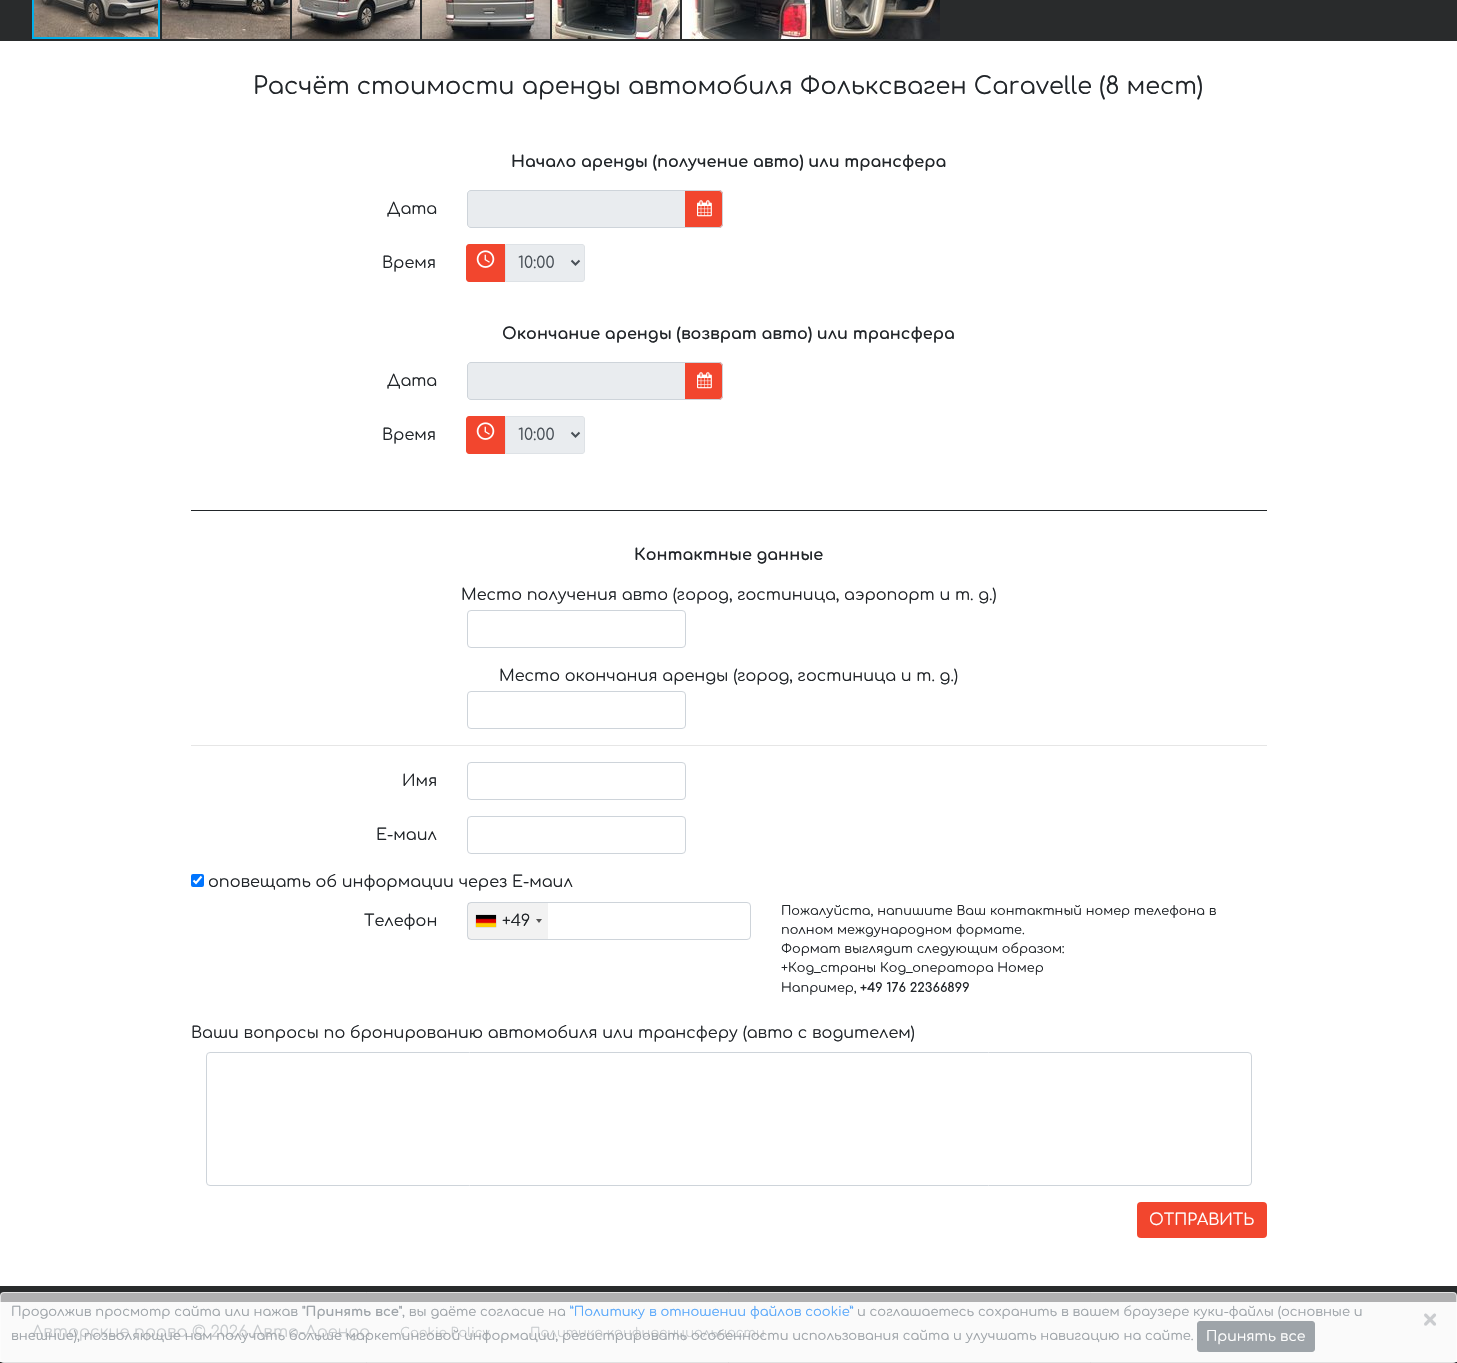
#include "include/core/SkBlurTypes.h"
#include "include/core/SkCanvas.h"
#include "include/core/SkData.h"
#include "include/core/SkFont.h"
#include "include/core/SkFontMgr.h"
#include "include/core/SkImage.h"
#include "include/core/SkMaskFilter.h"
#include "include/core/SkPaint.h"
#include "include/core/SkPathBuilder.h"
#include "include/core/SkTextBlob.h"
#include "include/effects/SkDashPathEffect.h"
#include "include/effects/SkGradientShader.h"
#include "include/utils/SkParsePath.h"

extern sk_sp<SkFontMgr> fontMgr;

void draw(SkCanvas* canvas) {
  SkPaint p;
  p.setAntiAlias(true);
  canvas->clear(SkColorSetRGB(41, 43, 44));
  canvas->drawImageRect(SkImages::DeferredFromEncodedData(SkData::MakeFromFileName("images/1.png")), SkRect::MakeLTRB(34, 0, 158, 37), SkSamplingOptions());
  p.setStyle(SkPaint::kStroke_Style);
  p.setStrokeWidth(2);
  p.setColor(SkColorSetRGB(0, 175, 234));
  canvas->drawRect(SkRect::MakeLTRB(33, -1, 159, 38), p);
  canvas->drawImageRect(SkImages::DeferredFromEncodedData(SkData::MakeFromFileName("images/2.png")), SkRect::MakeLTRB(162, 0, 290, 39), SkSamplingOptions());
  canvas->drawImageRect(SkImages::DeferredFromEncodedData(SkData::MakeFromFileName("images/3.png")), SkRect::MakeLTRB(292, 0, 420, 39), SkSamplingOptions());
  canvas->drawImageRect(SkImages::DeferredFromEncodedData(SkData::MakeFromFileName("images/4.png")), SkRect::MakeLTRB(422, 0, 550, 39), SkSamplingOptions());
  canvas->drawImageRect(SkImages::DeferredFromEncodedData(SkData::MakeFromFileName("images/5.png")), SkRect::MakeLTRB(552, 0, 680, 39), SkSamplingOptions());
  canvas->drawImageRect(SkImages::DeferredFromEncodedData(SkData::MakeFromFileName("images/6.png")), SkRect::MakeLTRB(682, 0, 810, 39), SkSamplingOptions());
  canvas->drawImageRect(SkImages::DeferredFromEncodedData(SkData::MakeFromFileName("images/7.png")), SkRect::MakeLTRB(812, 0, 940, 39), SkSamplingOptions());
  p.setStyle(SkPaint::kFill_Style);
  p.setColor(SK_ColorWHITE);
  canvas->drawRect(SkRect::MakeLTRB(0, 41, 1457, 1286), p);
  p.setColor(SkColorSetRGB(233, 236, 239));
  canvas->drawPath(SkPathBuilder().moveTo(471, 190.5f).lineTo(685.5f, 190.5f).lineTo(685.5f, 227.5f).lineTo(471, 227.5f).cubicTo(469, 227.5f, 467.5f, 226, 467.5f, 224).lineTo(467.5f, 194).cubicTo(467.5f, 192, 469, 190.5f, 471, 190.5f).close().detach(), p);
  p.setStyle(SkPaint::kStroke_Style);
  p.setStrokeWidth(1);
  p.setColor(SkColorSetRGB(206, 212, 218));
  canvas->drawPath(SkPathBuilder().moveTo(471, 190.5f).lineTo(685.5f, 190.5f).lineTo(685.5f, 227.5f).lineTo(471, 227.5f).cubicTo(469, 227.5f, 467.5f, 226, 467.5f, 224).lineTo(467.5f, 194).cubicTo(467.5f, 192, 469, 190.5f, 471, 190.5f).close().detach(), p);
  p.setStyle(SkPaint::kFill_Style);
  p.setColor(SkColorSetRGB(242, 70, 46));
  canvas->drawPath(SkPathBuilder().moveTo(685, 190).lineTo(719, 190).cubicTo(721, 190, 723, 192, 723, 194).lineTo(723, 224).cubicTo(723, 226, 721, 228, 719, 228).lineTo(685, 228).close().detach(), p);
  p.setColor(SkColorSetRGB(206, 212, 218));
  canvas->drawPath(SkPathBuilder(SkPathFillType::kEvenOdd).moveTo(685, 190).lineTo(719, 190).cubicTo(721, 190, 723, 192, 723, 194).lineTo(723, 224).cubicTo(723, 226, 721, 228, 719, 228).lineTo(685, 228).close().moveTo(685, 191).lineTo(719, 191).cubicTo(720.5f, 191, 722, 192.5f, 722, 194).lineTo(722, 224).cubicTo(722, 225.5f, 720.5f, 227, 719, 227).lineTo(685, 227).close().detach(), p);
  canvas->drawImageRect(SkImages::DeferredFromEncodedData(SkData::MakeFromFileName("images/8.png")), SkRect::MakeLTRB(697, 200, 712, 217), SkSamplingOptions());
  p.setColor(SkColorSetRGB(242, 70, 46));
  canvas->drawPath(SkPathBuilder().moveTo(469, 244).lineTo(505, 244).lineTo(505, 282).lineTo(469, 282).cubicTo(467.5f, 282, 466, 280.5f, 466, 279).lineTo(466, 247).cubicTo(466, 245.5f, 467.5f, 244, 469, 244).close().detach(), p);
  canvas->drawImageRect(SkImages::DeferredFromEncodedData(SkData::MakeFromFileName("images/9.png")), SkRect::MakeLTRB(476, 250, 495, 268), SkSamplingOptions());
  p.setColor(SkColorSetRGB(233, 236, 239));
  canvas->drawPath(SkPathBuilder().moveTo(505.5f, 244.5f).lineTo(582, 244.5f).cubicTo(583.5f, 244.5f, 584.5f, 245.5f, 584.5f, 247).lineTo(584.5f, 279).cubicTo(584.5f, 280.5f, 583.5f, 281.5f, 582, 281.5f).lineTo(505.5f, 281.5f).close().detach(), p);
  p.setStyle(SkPaint::kStroke_Style);
  p.setColor(SkColorSetRGB(222, 226, 230));
  canvas->drawPath(SkPathBuilder().moveTo(505.5f, 244.5f).lineTo(582, 244.5f).cubicTo(583.5f, 244.5f, 584.5f, 245.5f, 584.5f, 247).lineTo(584.5f, 279).cubicTo(584.5f, 280.5f, 583.5f, 281.5f, 582, 281.5f).lineTo(505.5f, 281.5f).close().detach(), p);
  p.setStrokeWidth(2);
  p.setColor(SkColorSetRGB(73, 80, 87));
  canvas->drawPath(SkPathBuilder().moveTo(571.5f, 260.5f).lineTo(575.5f, 264.5f).lineTo(579.5f, 260.5f).detach(), p);
  p.setStyle(SkPaint::kFill_Style);
  p.setColor(SkColorSetRGB(233, 236, 239));
  canvas->drawPath(SkPathBuilder().moveTo(471, 362.5f).lineTo(685.5f, 362.5f).lineTo(685.5f, 399.5f).lineTo(471, 399.5f).cubicTo(469, 399.5f, 467.5f, 398, 467.5f, 396).lineTo(467.5f, 366).cubicTo(467.5f, 364, 469, 362.5f, 471, 362.5f).close().detach(), p);
  p.setStyle(SkPaint::kStroke_Style);
  p.setStrokeWidth(1);
  p.setColor(SkColorSetRGB(206, 212, 218));
  canvas->drawPath(SkPathBuilder().moveTo(471, 362.5f).lineTo(685.5f, 362.5f).lineTo(685.5f, 399.5f).lineTo(471, 399.5f).cubicTo(469, 399.5f, 467.5f, 398, 467.5f, 396).lineTo(467.5f, 366).cubicTo(467.5f, 364, 469, 362.5f, 471, 362.5f).close().detach(), p);
  p.setStyle(SkPaint::kFill_Style);
  p.setColor(SkColorSetRGB(242, 70, 46));
  canvas->drawPath(SkPathBuilder().moveTo(685, 362).lineTo(719, 362).cubicTo(721, 362, 723, 364, 723, 366).lineTo(723, 396).cubicTo(723, 398, 721, 400, 719, 400).lineTo(685, 400).close().detach(), p);
  p.setColor(SkColorSetRGB(206, 212, 218));
  canvas->drawPath(SkPathBuilder(SkPathFillType::kEvenOdd).moveTo(685, 362).lineTo(719, 362).cubicTo(721, 362, 723, 364, 723, 366).lineTo(723, 396).cubicTo(723, 398, 721, 400, 719, 400).lineTo(685, 400).close().moveTo(685, 363).lineTo(719, 363).cubicTo(720.5f, 363, 722, 364.5f, 722, 366).lineTo(722, 396).cubicTo(722, 397.5f, 720.5f, 399, 719, 399).lineTo(685, 399).close().detach(), p);
  canvas->drawImageRect(SkImages::DeferredFromEncodedData(SkData::MakeFromFileName("images/8.png")), SkRect::MakeLTRB(697, 372, 712, 389), SkSamplingOptions());
  p.setColor(SkColorSetRGB(242, 70, 46));
  canvas->drawPath(SkPathBuilder().moveTo(469, 416).lineTo(505, 416).lineTo(505, 454).lineTo(469, 454).cubicTo(467.5f, 454, 466, 452.5f, 466, 451).lineTo(466, 419).cubicTo(466, 417.5f, 467.5f, 416, 469, 416).close().detach(), p);
  canvas->drawImageRect(SkImages::DeferredFromEncodedData(SkData::MakeFromFileName("images/9.png")), SkRect::MakeLTRB(476, 422, 495, 440), SkSamplingOptions());
  p.setColor(SkColorSetRGB(233, 236, 239));
  canvas->drawPath(SkPathBuilder().moveTo(505.5f, 416.5f).lineTo(582, 416.5f).cubicTo(583.5f, 416.5f, 584.5f, 417.5f, 584.5f, 419).lineTo(584.5f, 451).cubicTo(584.5f, 452.5f, 583.5f, 453.5f, 582, 453.5f).lineTo(505.5f, 453.5f).close().detach(), p);
  p.setStyle(SkPaint::kStroke_Style);
  p.setColor(SkColorSetRGB(222, 226, 230));
  canvas->drawPath(SkPathBuilder().moveTo(505.5f, 416.5f).lineTo(582, 416.5f).cubicTo(583.5f, 416.5f, 584.5f, 417.5f, 584.5f, 419).lineTo(584.5f, 451).cubicTo(584.5f, 452.5f, 583.5f, 453.5f, 582, 453.5f).lineTo(505.5f, 453.5f).close().detach(), p);
  p.setStrokeWidth(2);
  p.setColor(SkColorSetRGB(73, 80, 87));
  canvas->drawPath(SkPathBuilder().moveTo(571.5f, 432.5f).lineTo(575.5f, 436.5f).lineTo(579.5f, 432.5f).detach(), p);
  p.setStyle(SkPaint::kFill_Style);
  p.setColor(SkColorSetRGB(33, 37, 41));
  canvas->drawRect(SkRect::MakeLTRB(191, 510, 1267, 511), p);
  p.setStyle(SkPaint::kStroke_Style);
  p.setStrokeWidth(1);
  p.setColor(SkColorSetRGB(206, 212, 218));
  canvas->drawRoundRect(SkRect::MakeLTRB(467.5f, 610.5f, 685.5f, 647.5f), 3.5f, 3.5f, p);
  canvas->drawRoundRect(SkRect::MakeLTRB(467.5f, 691.5f, 685.5f, 728.5f), 3.5f, 3.5f, p);
  p.setStyle(SkPaint::kFill_Style);
  p.setColor(SkColorSetRGB(230, 230, 230));
  canvas->drawRect(SkRect::MakeLTRB(191, 745, 1267, 746), p);
  p.setStyle(SkPaint::kStroke_Style);
  p.setColor(SkColorSetRGB(206, 212, 218));
  canvas->drawRoundRect(SkRect::MakeLTRB(467.5f, 762.5f, 685.5f, 799.5f), 3.5f, 3.5f, p);
  canvas->drawRoundRect(SkRect::MakeLTRB(467.5f, 816.5f, 685.5f, 853.5f), 3.5f, 3.5f, p);
  p.setStyle(SkPaint::kFill_Style);
  p.setColor(SkColorSetRGB(0, 117, 255));
  canvas->drawRoundRect(SkRect::MakeLTRB(191, 874, 204, 887), 2, 2, p);
  p.setStyle(SkPaint::kStroke_Style);
  p.setStrokeWidth(2.1f);
  p.setColor(SK_ColorWHITE);
  canvas->drawPath(SkPathBuilder().moveTo(193.5f, 880.5f).lineTo(196, 883).lineTo(201.5f, 876.5f).detach(), p);
  p.setStrokeWidth(1);
  p.setColor(SkColorSetRGB(206, 212, 218));
  canvas->drawRoundRect(SkRect::MakeLTRB(467.5f, 902.5f, 750.5f, 939.5f), 3.5f, 3.5f, p);
  p.setStyle(SkPaint::kFill_Style);
  p.setColor(SkColorSetARGB(13, 0, 0, 0));
  canvas->drawRect(SkRect::MakeLTRB(468, 903, 548, 939), p);
  p.setColor(SkColorSetRGB(136, 136, 136));
  p.setMaskFilter(SkMaskFilter::MakeBlur(kNormal_SkBlurStyle, 0.5f));
  canvas->drawRect(SkRect::MakeLTRB(476, 915, 496, 927), p);
  p.setMaskFilter(nullptr);
  canvas->drawImageRect(SkImages::DeferredFromEncodedData(SkData::MakeFromFileName("images/10.png")), SkRect::MakeLTRB(476, 915, 496, 927), SkSamplingOptions());
  p.setColor(SkColorSetRGB(85, 85, 85));
  canvas->drawPath(SkPathBuilder().moveTo(536, 919).lineTo(542, 919).lineTo(539, 923).close().detach(), p);
  p.setStyle(SkPaint::kStroke_Style);
  p.setColor(SkColorSetRGB(206, 212, 218));
  canvas->drawRoundRect(SkRect::MakeLTRB(206.5f, 1052.5f, 1251.5f, 1185.5f), 3.5f, 3.5f, p);
  p.setStyle(SkPaint::kFill_Style);
  p.setColor(SkColorSetRGB(242, 70, 46));
  canvas->drawRoundRect(SkRect::MakeLTRB(1137, 1202, 1267, 1238), 4, 4, p);
  p.setColor(SkColorSetRGB(245, 245, 245));
  canvas->drawRect(SkRect::MakeLTRB(0, 1302, 1457, 1362), p);
  SkFont font1(fontMgr->matchFamilyStyle("Comfortaa", SkFontStyle::Normal()), 24);
  font1.setSubpixel(true);
  p.setColor(SkColorSetRGB(33, 37, 41));
  canvas->drawString("Расчёт стоимости аренды автомобиля Фольксваген Caravelle (8 мест)", 253, 94, font1, p);
  SkFont font2(fontMgr->matchFamilyStyle("Comfortaa", SkFontStyle::Bold()), 16);
  font2.setSubpixel(true);
  canvas->drawString("Начало аренды (получение авто) или трансфера", 511, 167, font2, p);
  SkFont font3(fontMgr->matchFamilyStyle("Comfortaa", SkFontStyle::Normal()), 16);
  font3.setSubpixel(true);
  canvas->drawString("Дата", 387, 214, font3, p);
  canvas->drawString("Время", 382, 268, font3, p);
  p.setColor(SkColorSetRGB(73, 80, 87));
  canvas->drawString("10:00", 518, 268, font3, p);
  p.setColor(SkColorSetRGB(33, 37, 41));
  canvas->drawString("Окончание аренды (возврат авто) или трансфера", 502, 339, font2, p);
  canvas->drawString("Дата", 387, 386, font3, p);
  canvas->drawString("Время", 382, 440, font3, p);
  p.setColor(SkColorSetRGB(73, 80, 87));
  canvas->drawString("10:00", 518, 440, font3, p);
  p.setColor(SkColorSetRGB(33, 37, 41));
  canvas->drawString("Контактные данные", 634, 560, font2, p);
  canvas->drawString("Место получения авто (город, гостиница, аэропорт и т. д.)", 461, 600, font3, p);
  canvas->drawString("Место окончания аренды (город, гостиница и т. д.)", 499, 681, font3, p);
  canvas->drawString("Имя", 402, 786, font3, p);
  canvas->drawString("Е-маил", 376, 840, font3, p);
  canvas->drawString("оповещать об информации через Е-маил", 208, 887, font3, p);
  canvas->drawString("Телефон", 364, 926, font3, p);
  canvas->drawString("+49", 502, 926, font3, p);
  SkFont font4(fontMgr->matchFamilyStyle("Comfortaa", SkFontStyle::Normal()), 12.8f);
  font4.setSubpixel(true);
  canvas->drawString("Пожалуйста, напишите Ваш контактный номер телефона в", 781, 915, font4, p);
  canvas->drawString("полном международном формате.", 781, 934, font4, p);
  canvas->drawString("Формат выглядит следующим образом:", 781, 953, font4, p);
  canvas->drawString("+Код_страны Код_оператора Номер", 781, 972, font4, p);
  canvas->drawString("Например,", 781, 992, font4, p);
  SkFont font5(fontMgr->matchFamilyStyle("Comfortaa", SkFontStyle::Bold()), 12.8f);
  font5.setSubpixel(true);
  canvas->drawString("+49 176 22366899", 860, 992, font5, p);
  canvas->drawString("Ваши вопросы по бронированию автомобиля или трансферу (авто с водителем)", 191, 1038, font3, p);
  p.setColor(SK_ColorWHITE);
  canvas->drawString("ОТПРАВИТЬ", 1149, 1225, font3, p);
  p.setColor(SkColorSetRGB(108, 117, 125));
  canvas->drawString("Авторские права © 2026 Авто-Аренда", 32, 1337, font3, p);
  SkFont font6(fontMgr->matchFamilyStyle("Comfortaa", SkFontStyle::Normal()), 13);
  font6.setSubpixel(true);
  canvas->drawString("Cookie Policy", 400, 1337, font6, p);
  canvas->drawString("Политика конфиденциальности", 530, 1337, font6, p);
  p.setColor(SkColorSetARGB(161, 254, 254, 254));
  canvas->drawRoundRect(SkRect::MakeLTRB(0, 1292, 1457, 1363), 4, 4, p);
  p.setStyle(SkPaint::kStroke_Style);
  p.setColor(SkColorSetARGB(161, 253, 253, 254));
  canvas->drawRoundRect(SkRect::MakeLTRB(0.5f, 1292.5f, 1456.5f, 1362.5f), 3.5f, 3.5f, p);
  SkFont font7(fontMgr->matchFamilyStyle("Comfortaa", SkFontStyle::Bold()), 30);
  font7.setSubpixel(true);
  p.setStyle(SkPaint::kFill_Style);
  p.setColor(SkColorSetRGB(202, 204, 207));
  canvas->drawString("×", 1423, 1330, font7, p);
  p.setColor(SkColorSetRGB(158, 164, 169));
  canvas->drawRoundRect(SkRect::MakeLTRB(1197.5f, 1321.5f, 1314.5f, 1351.5f), 2.5f, 2.5f, p);
  p.setStyle(SkPaint::kStroke_Style);
  canvas->drawRoundRect(SkRect::MakeLTRB(1197.5f, 1321.5f, 1314.5f, 1351.5f), 2.5f, 2.5f, p);
  SkFont font8(fontMgr->matchFamilyStyle("Comfortaa", SkFontStyle::Normal()), 14);
  font8.setSubpixel(true);
  p.setStyle(SkPaint::kFill_Style);
  p.setColor(SK_ColorWHITE);
  canvas->drawString("Принять все", 1206, 1341, font8, p);
  p.setColor(SkColorSetRGB(158, 164, 169));
  canvas->drawString("внешние), позволяющие нам получать больше маркетинговой информации, регистрировать особенности использования сайта и улучшать навигацию на сайте.", 11, 1340, font6, p);
  canvas->drawString("и соглашаетесь сохранить в вашем браузере куки-файлы (основные и", 857, 1316, font6, p);
  p.setColor(SkColorSetRGB(89, 168, 251));
  canvas->drawString("”Политику в отношении файлов cookie”", 570, 1316, font6, p);
  p.setColor(SkColorSetRGB(158, 164, 169));
  canvas->drawString(", вы даёте согласие на", 402, 1316, font6, p);
  SkFont font9(fontMgr->matchFamilyStyle("Comfortaa", SkFontStyle::Bold()), 13);
  font9.setSubpixel(true);
  canvas->drawString("\"Принять все\"", 302, 1316, font9, p);
  canvas->drawString("Продолжив просмотр сайта или нажав", 11, 1316, font6, p);
}
